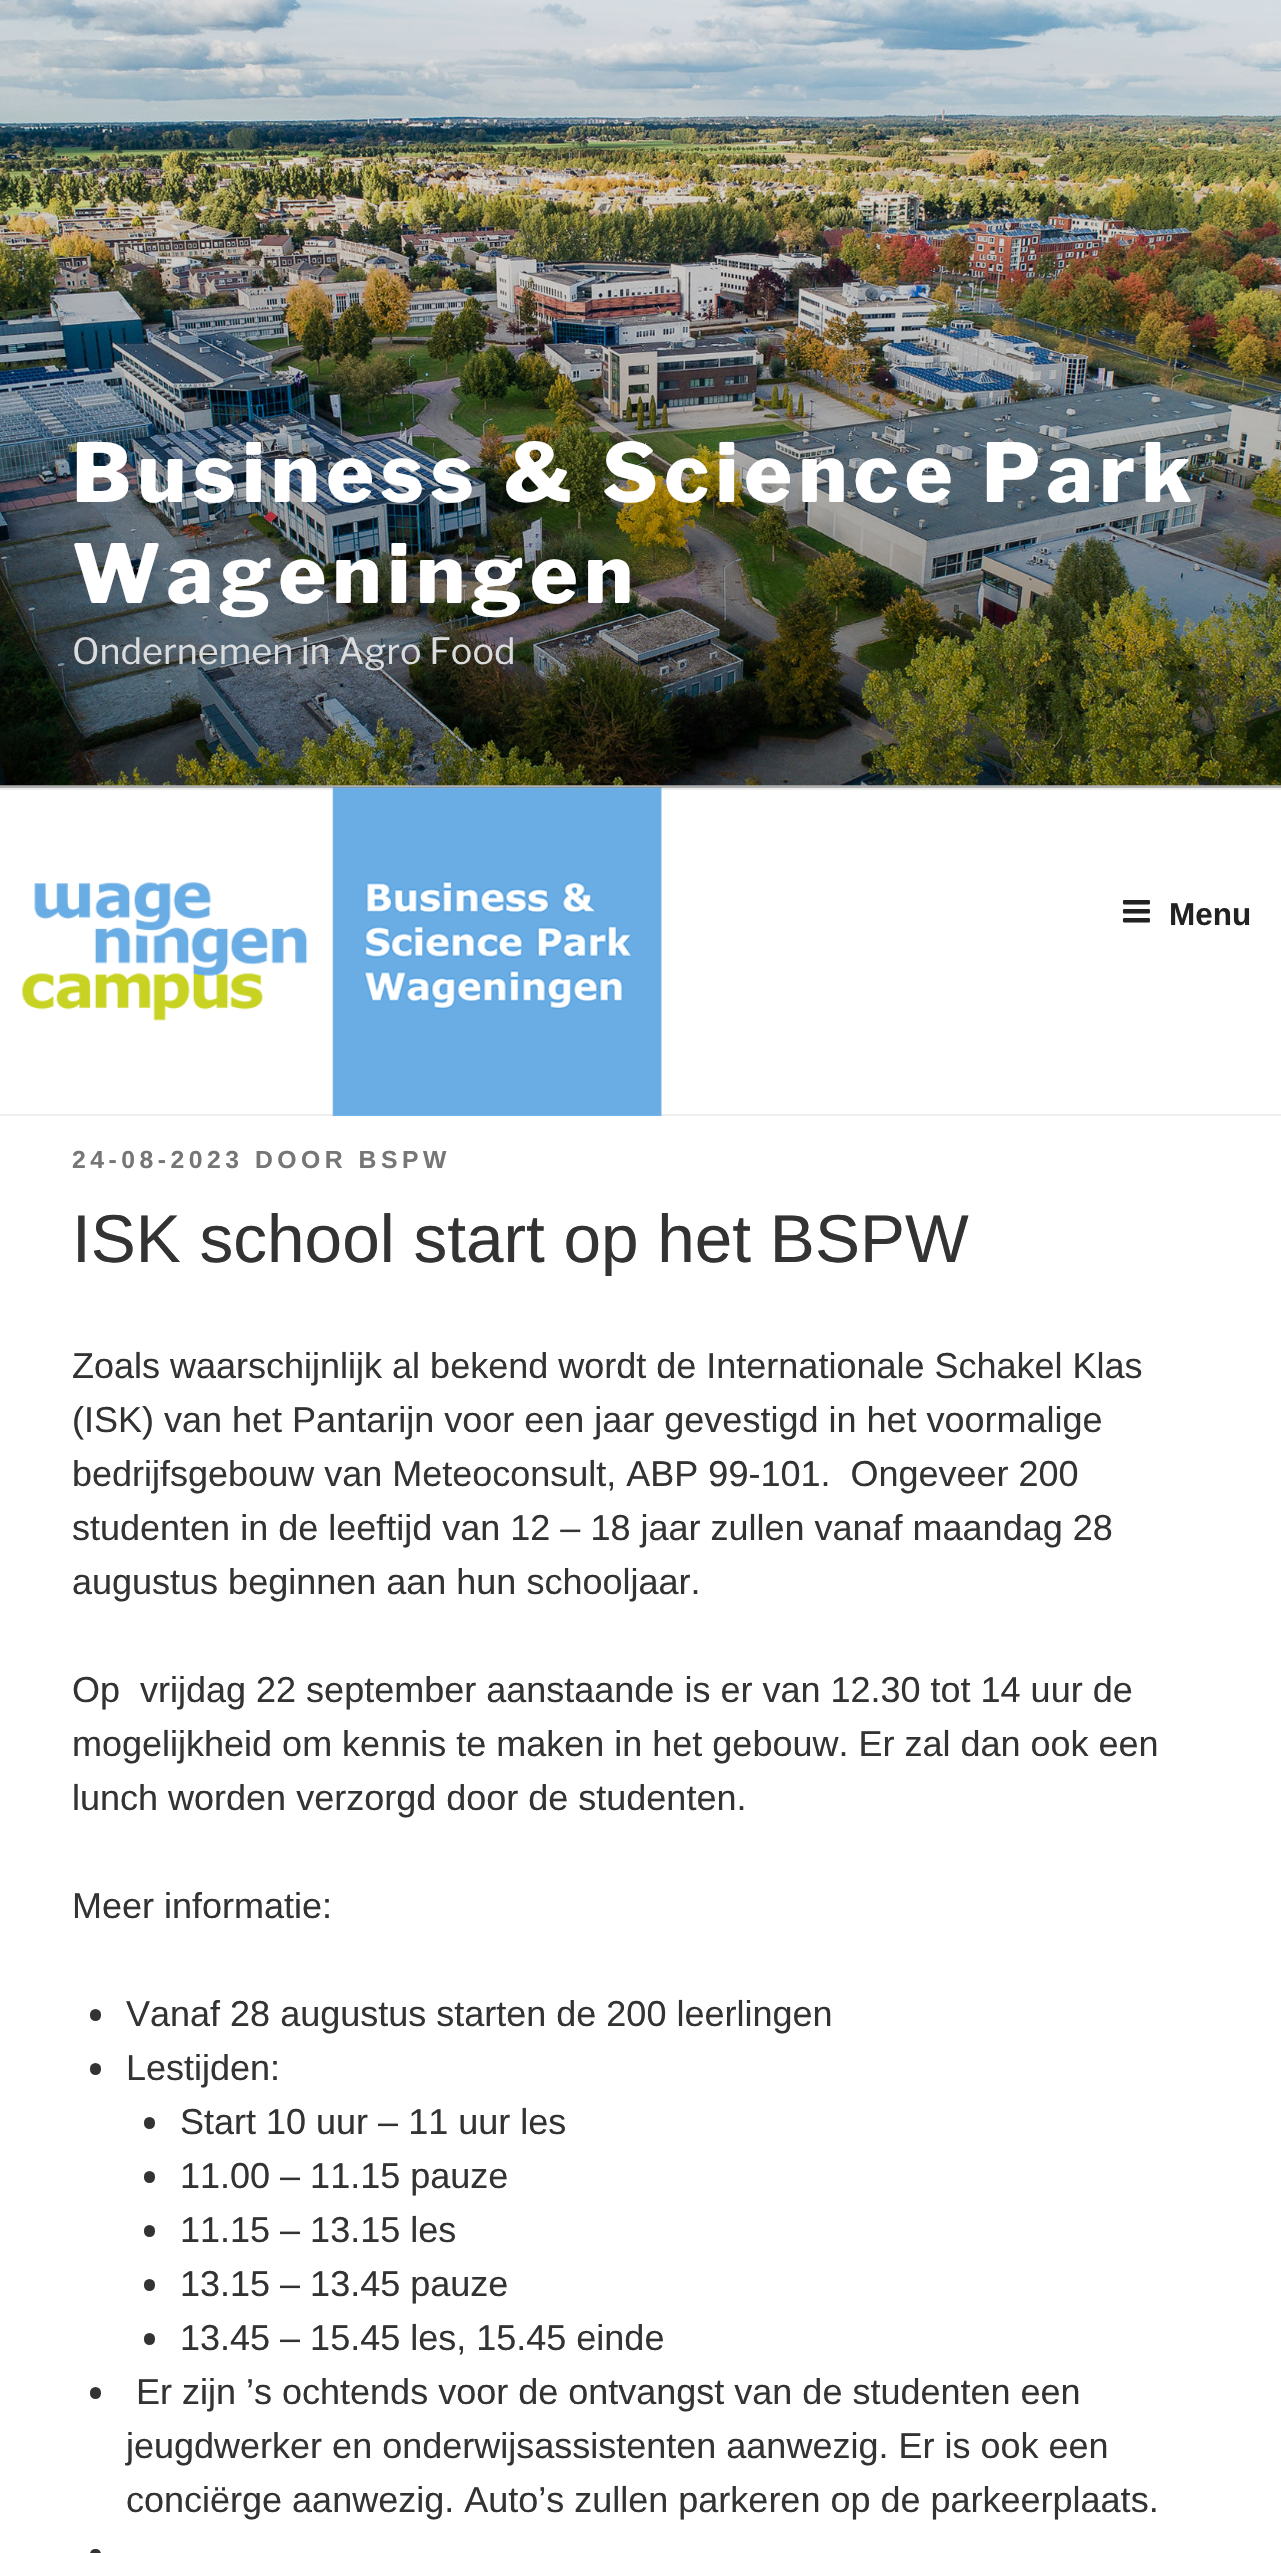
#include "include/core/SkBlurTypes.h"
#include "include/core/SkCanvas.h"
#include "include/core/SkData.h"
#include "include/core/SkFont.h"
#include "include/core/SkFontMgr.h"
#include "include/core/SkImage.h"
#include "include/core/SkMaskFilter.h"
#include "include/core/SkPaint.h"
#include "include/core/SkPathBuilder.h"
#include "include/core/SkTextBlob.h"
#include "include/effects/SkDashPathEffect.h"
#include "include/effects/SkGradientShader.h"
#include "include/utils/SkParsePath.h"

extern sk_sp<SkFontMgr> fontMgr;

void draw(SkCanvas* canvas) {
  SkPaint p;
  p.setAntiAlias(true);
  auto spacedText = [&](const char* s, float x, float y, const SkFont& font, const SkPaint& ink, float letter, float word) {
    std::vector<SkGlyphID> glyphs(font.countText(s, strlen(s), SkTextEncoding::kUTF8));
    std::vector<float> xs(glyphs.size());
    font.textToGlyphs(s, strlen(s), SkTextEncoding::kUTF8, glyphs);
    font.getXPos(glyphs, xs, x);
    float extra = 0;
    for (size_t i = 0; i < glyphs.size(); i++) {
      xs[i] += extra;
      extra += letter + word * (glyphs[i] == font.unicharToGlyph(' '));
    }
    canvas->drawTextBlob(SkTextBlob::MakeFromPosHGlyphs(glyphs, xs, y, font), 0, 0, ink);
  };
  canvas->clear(SK_ColorWHITE);
  p.setColor(SkColorSetRGB(250, 250, 250));
  canvas->drawRect(SkRect::MakeLTRB(0, 785, 1281, 788), p);
  canvas->drawImageRect(SkImages::DeferredFromEncodedData(SkData::MakeFromFileName("images/1.png")), SkRect::MakeLTRB(0, 0, 1281, 786), SkSamplingOptions());
  p.setColor(SkColorSetRGB(238, 238, 238));
  canvas->drawRect(SkRect::MakeLTRB(0, 788, 1281, 790), p);
  canvas->drawRect(SkRect::MakeLTRB(0, 1114, 1281, 1116), p);
  canvas->drawImageRect(SkImages::DeferredFromEncodedData(SkData::MakeFromFileName("images/2.png")), SkRect::MakeLTRB(22, 787, 662, 1116), SkSamplingOptions());
  {
    const SkColor colors[] = {SkColorSetARGB(0, 0, 0, 0), SkColorSetARGB(77, 0, 0, 0), SkColorSetARGB(77, 0, 0, 0)};
    const float stops[] = {0, 0.75f, 1};
    const SkPoint ends[] = {{641, -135}, {641, 788}};
    p.setShader(SkGradientShader::MakeLinear(ends, colors, stops, 3, SkTileMode::kClamp));
    p.setAlpha(255);
  }
  canvas->drawRect(SkRect::MakeLTRB(0, 0, 1281, 788), p);
  canvas->drawImageRect(SkImages::DeferredFromEncodedData(SkData::MakeFromFileName("images/3.png")), SkRect::MakeLTRB(1122, 900, 1150, 923), SkSamplingOptions());
  p.setShader(nullptr);
  p.setColor(SkColorSetRGB(51, 51, 51));
  canvas->drawRoundRect(SkRect::MakeLTRB(90, 2009, 101, 2021), 5.5f, 5.5f, p);
  canvas->drawRoundRect(SkRect::MakeLTRB(90, 2063, 101, 2075), 5.5f, 5.5f, p);
  canvas->drawRoundRect(SkRect::MakeLTRB(144, 2117, 155, 2129), 5.5f, 5.5f, p);
  canvas->drawRoundRect(SkRect::MakeLTRB(144, 2171, 155, 2183), 5.5f, 5.5f, p);
  canvas->drawRoundRect(SkRect::MakeLTRB(144, 2225, 155, 2237), 5.5f, 5.5f, p);
  canvas->drawRoundRect(SkRect::MakeLTRB(144, 2279, 155, 2291), 5.5f, 5.5f, p);
  canvas->drawRoundRect(SkRect::MakeLTRB(144, 2333, 155, 2345), 5.5f, 5.5f, p);
  canvas->drawRoundRect(SkRect::MakeLTRB(90, 2387, 101, 2399), 5.5f, 5.5f, p);
  canvas->drawRoundRect(SkRect::MakeLTRB(90, 2549, 101, 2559), 5.5f, 5.5f, p);
  SkFont font1(fontMgr->matchFamilyStyle("Libre Franklin", SkFontStyle(800, SkFontStyle::kNormal_Width, SkFontStyle::kUpright_Slant)), 81);
  font1.setSubpixel(true);
  p.setColor(SK_ColorWHITE);
  spacedText("Business & Science Park", 72, 502, font1, p, 6.5f, 0);
  spacedText("Wageningen", 72, 603, font1, p, 6.5f, 0);
  SkFont font2(fontMgr->matchFamilyStyle("Libre Franklin", SkFontStyle(100, SkFontStyle::kNormal_Width, SkFontStyle::kUpright_Slant)), 36);
  font2.setSubpixel(true);
  p.setColor(SkColorSetRGB(219, 220, 221));
  canvas->drawString("Ondernemen in Agro Food", 72, 664, font2, p);
  SkFont font3(fontMgr->matchFamilyStyle("Arimo", SkFontStyle::Bold()), 31.5f);
  font3.setSubpixel(true);
  p.setColor(SkColorSetRGB(34, 34, 34));
  canvas->drawString("Menu", 1169, 925, font3, p);
  SkFont font4(fontMgr->matchFamilyStyle("Arimo", SkFontStyle::Bold()), 24.75f);
  font4.setSubpixel(true);
  p.setColor(SkColorSetRGB(118, 118, 118));
  spacedText("24-08-2023 DOOR BSPW", 72, 1168, font4, p, 4.5f, 0);
  SkFont font5(fontMgr->matchFamilyStyle("Arimo", SkFontStyle::Normal()), 67.5f);
  font5.setSubpixel(true);
  p.setColor(SkColorSetRGB(51, 51, 51));
  canvas->drawString("ISK school start op het BSPW", 72, 1262, font5, p);
  SkFont font6(fontMgr->matchFamilyStyle("Arimo", SkFontStyle::Normal()), 36);
  font6.setSubpixel(true);
  canvas->drawString("Zoals waarschijnlijk al bekend wordt de Internationale Schakel Klas", 72, 1378, font6, p);
  canvas->drawString("(ISK) van het Pantarijn voor een jaar gevestigd in het voormalige", 72, 1432, font6, p);
  canvas->drawString("bedrijfsgebouw van Meteoconsult, ABP 99-101.  Ongeveer 200", 72, 1486, font6, p);
  canvas->drawString("studenten in de leeftijd van 12 – 18 jaar zullen vanaf maandag 28", 72, 1540, font6, p);
  canvas->drawString("augustus beginnen aan hun schooljaar.", 72, 1594, font6, p);
  canvas->drawString("Op  vrijdag 22 september aanstaande is er van 12.30 tot 14 uur de", 72, 1702, font6, p);
  canvas->drawString("mogelijkheid om kennis te maken in het gebouw. Er zal dan ook een", 72, 1756, font6, p);
  canvas->drawString("lunch worden verzorgd door de studenten.", 72, 1810, font6, p);
  canvas->drawString("Meer informatie:", 72, 1918, font6, p);
  canvas->drawString("Vanaf 28 augustus starten de 200 leerlingen", 126, 2026, font6, p);
  canvas->drawString("Lestijden:", 126, 2080, font6, p);
  canvas->drawString("Start 10 uur – 11 uur les", 180, 2134, font6, p);
  canvas->drawString("11.00 – 11.15 pauze", 180, 2188, font6, p);
  canvas->drawString("11.15 – 13.15 les", 180, 2242, font6, p);
  canvas->drawString("13.15 – 13.45 pauze", 180, 2296, font6, p);
  canvas->drawString("13.45 – 15.45 les, 15.45 einde", 180, 2350, font6, p);
  canvas->drawString("Er zijn ’s ochtends voor de ontvangst van de studenten een", 136, 2404, font6, p);
  canvas->drawString("jeugdwerker en onderwijsassistenten aanwezig. Er is ook een", 126, 2458, font6, p);
  canvas->drawString("conciërge aanwezig. Auto’s zullen parkeren op de parkeerplaats.", 126, 2512, font6, p);
}
